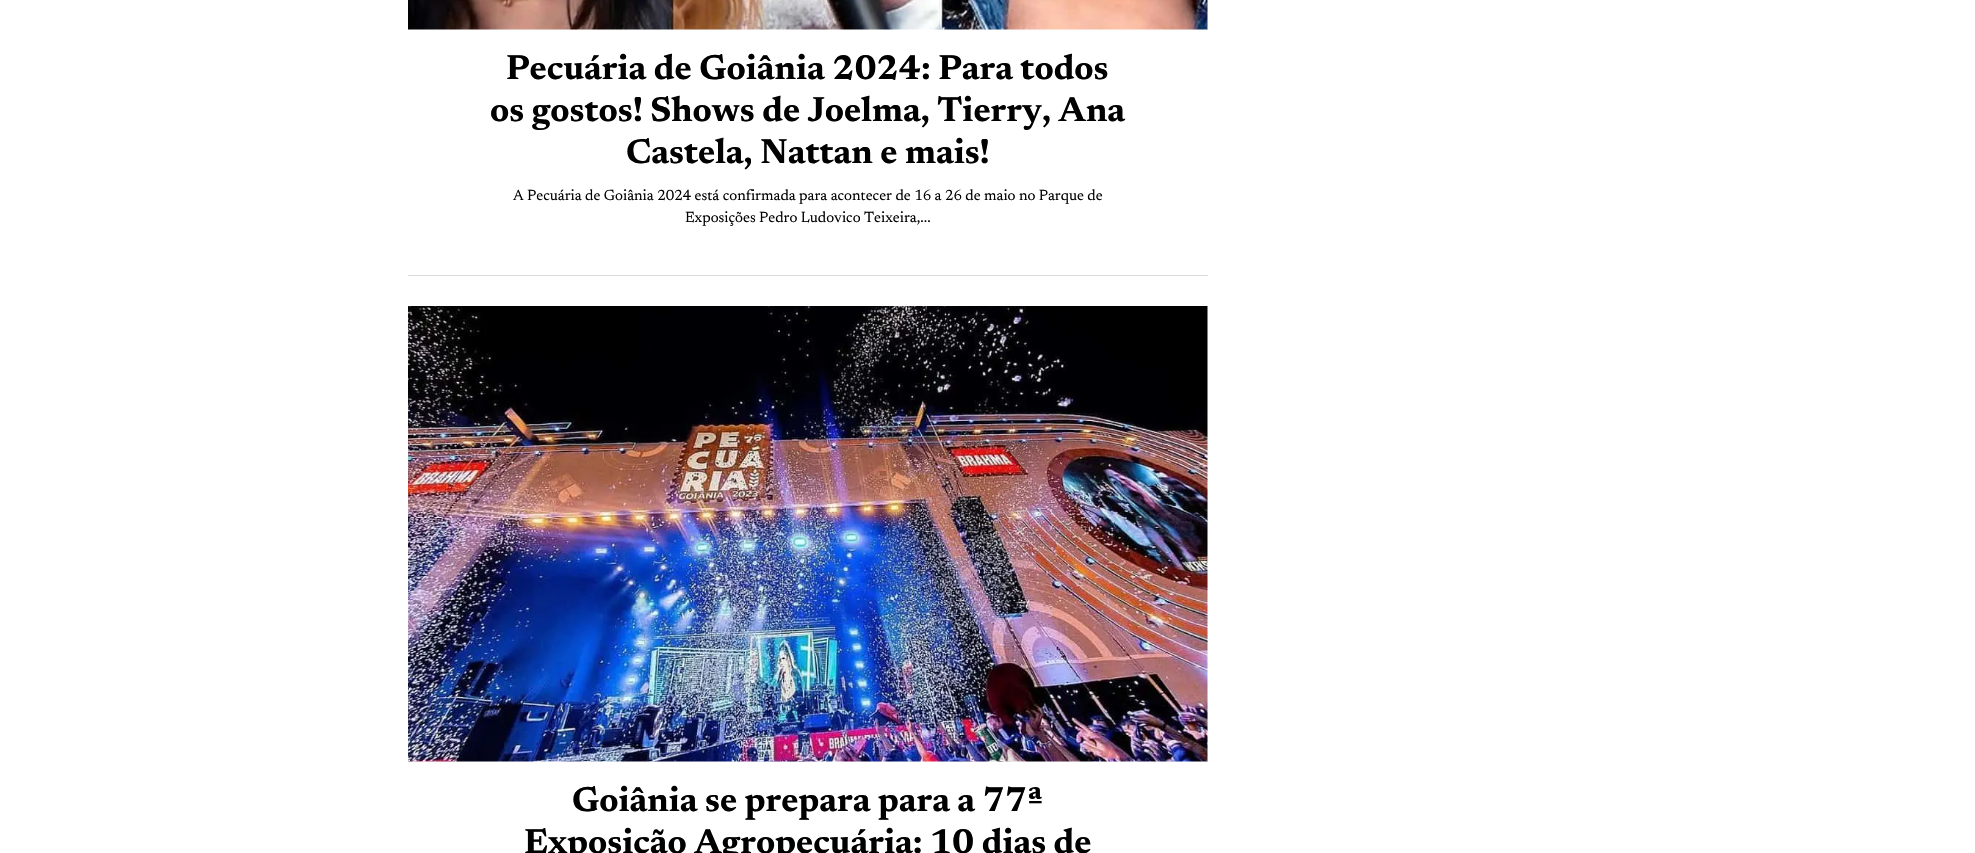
#include "include/core/SkBlurTypes.h"
#include "include/core/SkCanvas.h"
#include "include/core/SkData.h"
#include "include/core/SkFont.h"
#include "include/core/SkFontMgr.h"
#include "include/core/SkImage.h"
#include "include/core/SkMaskFilter.h"
#include "include/core/SkPaint.h"
#include "include/core/SkPathBuilder.h"
#include "include/core/SkTextBlob.h"
#include "include/effects/SkDashPathEffect.h"
#include "include/effects/SkGradientShader.h"
#include "include/utils/SkParsePath.h"

extern sk_sp<SkFontMgr> fontMgr;

void draw(SkCanvas* canvas) {
  SkPaint p;
  p.setAntiAlias(true);
  canvas->clear(SK_ColorWHITE);
  canvas->drawImageRect(SkImages::DeferredFromEncodedData(SkData::MakeFromFileName("images/1.png")), SkRect::MakeLTRB(408, 0, 1208, 30), SkSamplingOptions());
  p.setColor(SkColorSetRGB(219, 219, 219));
  canvas->drawRect(SkRect::MakeLTRB(408, 275, 1208, 276), p);
  canvas->drawImageRect(SkImages::DeferredFromEncodedData(SkData::MakeFromFileName("images/2.png")), SkRect::MakeLTRB(408, 306, 1208, 762), SkSamplingOptions());
  SkFont font1(fontMgr->matchFamilyStyle("Newsreader", SkFontStyle::Bold()), 35);
  font1.setSubpixel(true);
  p.setColor(SK_ColorBLACK);
  canvas->drawString("Pecuária de Goiânia 2024: Para todos", 506, 79, font1, p);
  canvas->drawString("os gostos! Shows de Joelma, Tierry, Ana", 490, 121, font1, p);
  canvas->drawString("Castela, Nattan e mais!", 626, 163, font1, p);
  SkFont font2(fontMgr->matchFamilyStyle("Newsreader", SkFontStyle::Normal()), 15);
  font2.setSubpixel(true);
  canvas->drawString("A Pecuária de Goiânia 2024 está confirmada para acontecer de 16 a 26 de maio no Parque de", 513, 200, font2, p);
  canvas->drawString("Exposições Pedro Ludovico Teixeira,...", 685, 222, font2, p);
  canvas->drawString("Goiânia se prepara para a 77ª", 572, 811, font1, p);
  canvas->drawString("Exposição Agropecuária: 10 dias de", 524, 853, font1, p);
}
